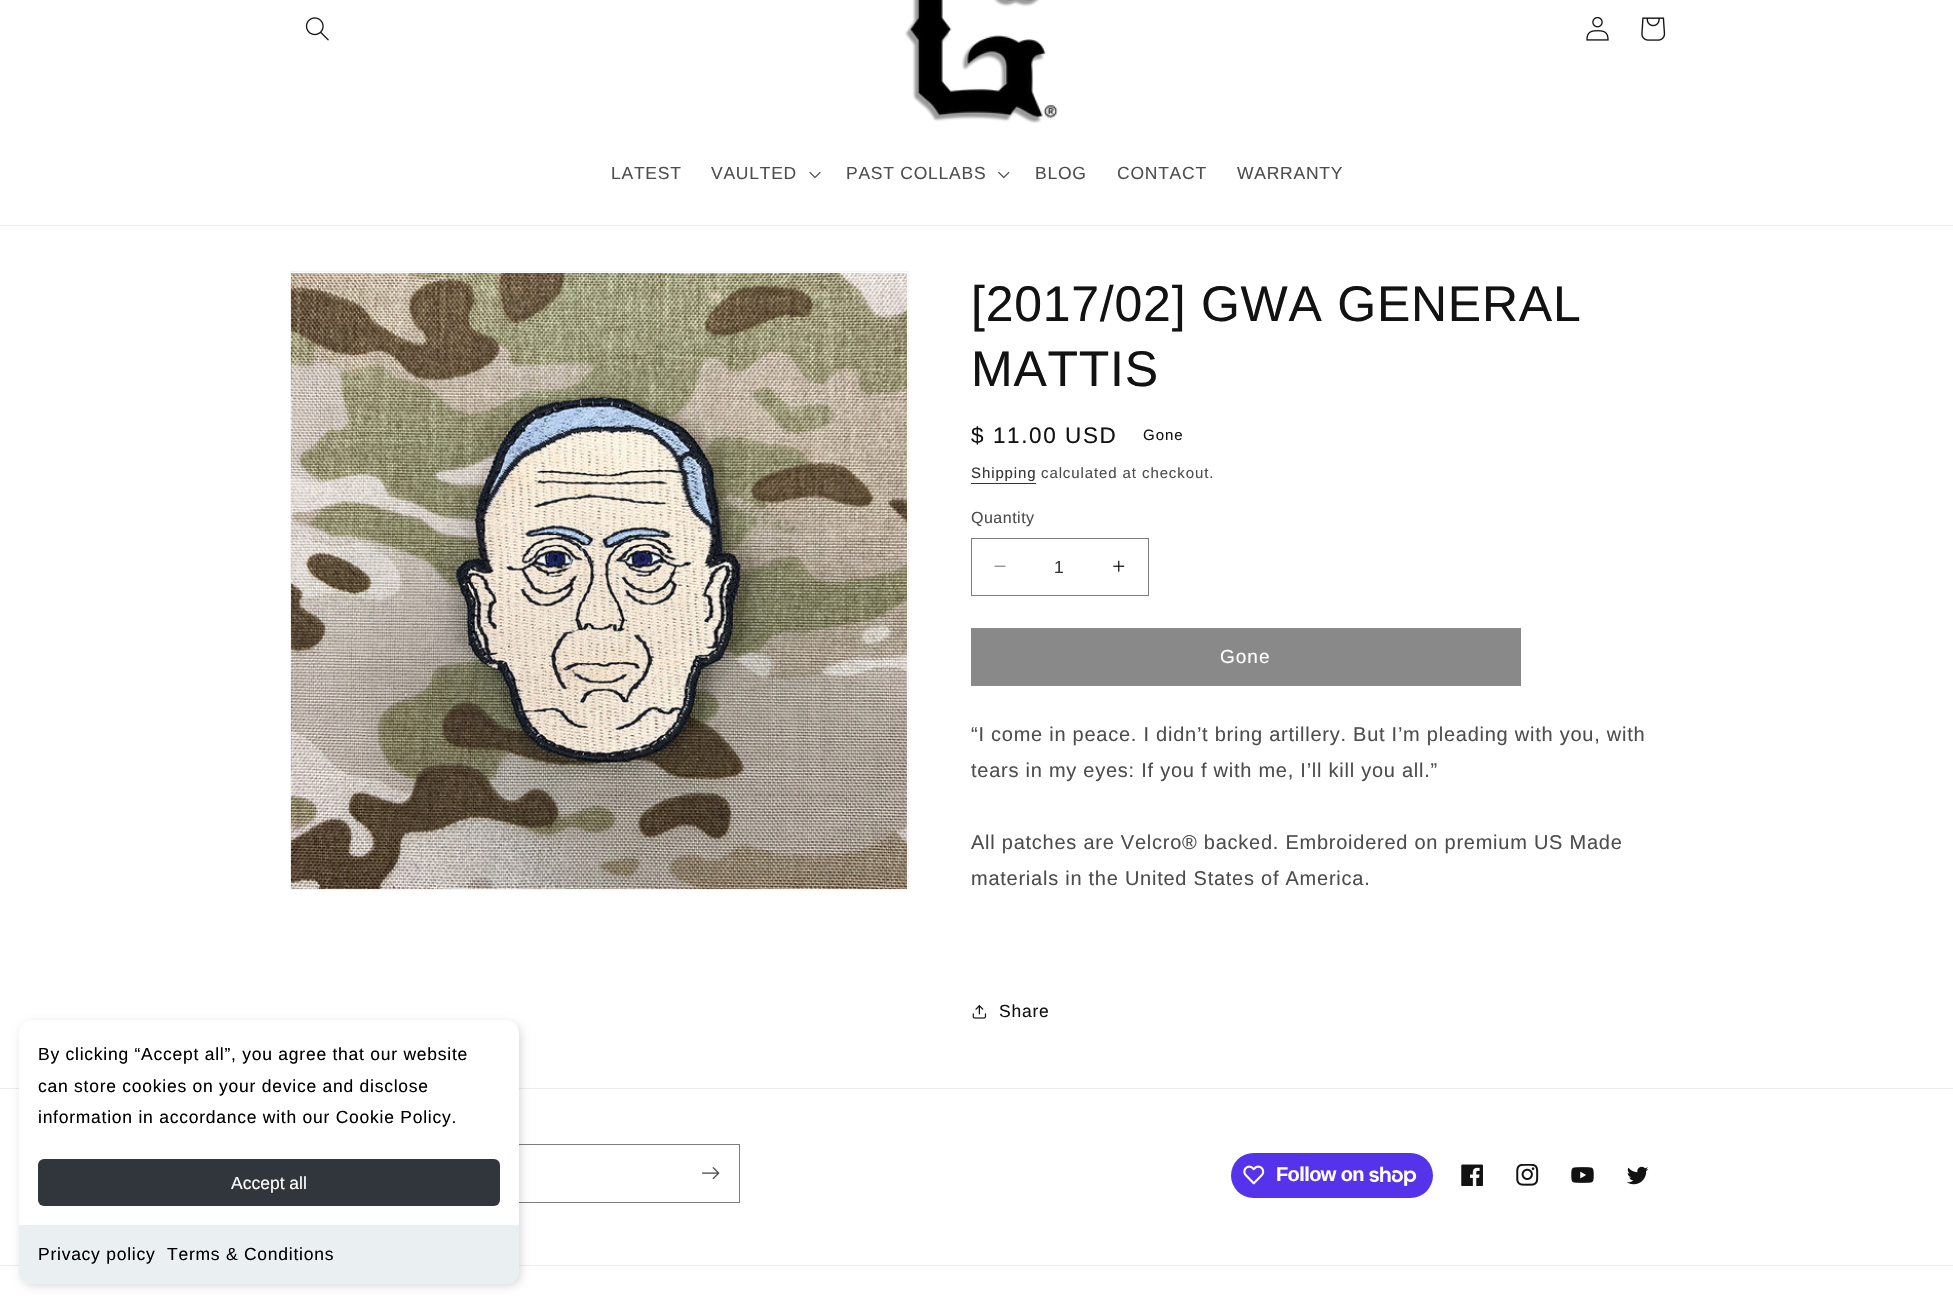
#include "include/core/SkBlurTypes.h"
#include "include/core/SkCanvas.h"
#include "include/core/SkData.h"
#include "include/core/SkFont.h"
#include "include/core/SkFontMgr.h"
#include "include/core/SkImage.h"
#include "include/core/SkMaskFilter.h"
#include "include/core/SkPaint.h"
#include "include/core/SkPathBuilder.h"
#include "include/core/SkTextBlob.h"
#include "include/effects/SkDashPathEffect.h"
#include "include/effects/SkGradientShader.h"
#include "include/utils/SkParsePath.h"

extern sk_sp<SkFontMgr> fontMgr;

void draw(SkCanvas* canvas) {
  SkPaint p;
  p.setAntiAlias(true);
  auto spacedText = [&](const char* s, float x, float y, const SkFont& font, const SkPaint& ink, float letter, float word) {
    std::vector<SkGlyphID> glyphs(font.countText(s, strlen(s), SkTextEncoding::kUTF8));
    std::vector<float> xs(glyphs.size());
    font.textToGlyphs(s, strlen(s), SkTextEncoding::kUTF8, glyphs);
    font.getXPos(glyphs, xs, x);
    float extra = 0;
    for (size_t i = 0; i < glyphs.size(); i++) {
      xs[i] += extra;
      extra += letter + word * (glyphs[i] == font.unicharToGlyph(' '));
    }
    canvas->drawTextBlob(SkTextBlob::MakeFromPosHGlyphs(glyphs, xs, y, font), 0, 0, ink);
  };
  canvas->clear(SK_ColorWHITE);
  p.setColor(SkColorSetRGB(236, 236, 236));
  canvas->drawRect(SkRect::MakeLTRB(0, 225, 1953, 226), p);
  canvas->drawImageRect(SkImages::DeferredFromEncodedData(SkData::MakeFromFileName("images/1.png")), SkRect::MakeLTRB(305, 17, 329, 41), SkSamplingOptions());
  canvas->drawImageRect(SkImages::DeferredFromEncodedData(SkData::MakeFromFileName("images/2.png")), SkRect::MakeLTRB(905, 0, 1058, 123), SkSamplingOptions());
  canvas->drawImageRect(SkImages::DeferredFromEncodedData(SkData::MakeFromFileName("images/3.png")), SkRect::MakeLTRB(1586, 16, 1609, 41), SkSamplingOptions());
  canvas->drawImageRect(SkImages::DeferredFromEncodedData(SkData::MakeFromFileName("images/4.png")), SkRect::MakeLTRB(1641, 17, 1666, 41), SkSamplingOptions());
  canvas->drawImageRect(SkImages::DeferredFromEncodedData(SkData::MakeFromFileName("images/5.png")), SkRect::MakeLTRB(809, 172, 821, 178), SkSamplingOptions());
  canvas->drawImageRect(SkImages::DeferredFromEncodedData(SkData::MakeFromFileName("images/6.png")), SkRect::MakeLTRB(998, 171, 1010, 179), SkSamplingOptions());
  p.setStyle(SkPaint::kStroke_Style);
  p.setStrokeWidth(1);
  p.setColor(SkColorSetRGB(243, 243, 243));
  canvas->drawRect(SkRect::MakeLTRB(290.5f, 271.5f, 908.5f, 889.5f), p);
  canvas->drawImageRect(SkImages::DeferredFromEncodedData(SkData::MakeFromFileName("images/7.png")), SkRect::MakeLTRB(291, 273, 907, 889), SkSamplingOptions());
  p.setStyle(SkPaint::kFill_Style);
  p.setColor(SkColorSetRGB(54, 54, 54));
  canvas->drawRect(SkRect::MakeLTRB(971, 483, 1036, 484), p);
  canvas->drawImageRect(SkImages::DeferredFromEncodedData(SkData::MakeFromFileName("images/8.png")), SkRect::MakeLTRB(994, 565, 1006, 567), SkSamplingOptions());
  canvas->drawImageRect(SkImages::DeferredFromEncodedData(SkData::MakeFromFileName("images/9.png")), SkRect::MakeLTRB(1113, 560, 1125, 572), SkSamplingOptions());
  p.setStyle(SkPaint::kStroke_Style);
  p.setColor(SkColorSetRGB(125, 125, 125));
  canvas->drawRect(SkRect::MakeLTRB(971.5f, 538.5f, 1148.5f, 595.5f), p);
  p.setStyle(SkPaint::kFill_Style);
  p.setColor(SkColorSetRGB(137, 137, 137));
  canvas->drawRect(SkRect::MakeLTRB(971, 628, 1521, 686), p);
  canvas->drawImageRect(SkImages::DeferredFromEncodedData(SkData::MakeFromFileName("images/10.png")), SkRect::MakeLTRB(972, 1005, 987, 1019), SkSamplingOptions());
  p.setColor(SkColorSetRGB(236, 236, 236));
  canvas->drawRect(SkRect::MakeLTRB(0, 1088, 1953, 1089), p);
  p.setStyle(SkPaint::kStroke_Style);
  p.setColor(SkColorSetRGB(125, 125, 125));
  canvas->drawRect(SkRect::MakeLTRB(290.5f, 1144.5f, 739.5f, 1202.5f), p);
  p.setStyle(SkPaint::kFill_Style);
  p.setColor(SkColorSetRGB(236, 236, 236));
  canvas->drawRect(SkRect::MakeLTRB(0, 1265, 1953, 1266), p);
  p.setColor(SkColorSetARGB(38, 0, 0, 0));
  p.setMaskFilter(SkMaskFilter::MakeBlur(kNormal_SkBlurStyle, 4));
  canvas->drawRoundRect(SkRect::MakeLTRB(21, 1023, 521, 1286), 13, 13, p);
  p.setMaskFilter(nullptr);
  p.setColor(SK_ColorWHITE);
  canvas->drawRoundRect(SkRect::MakeLTRB(19, 1020, 519, 1284), 13, 13, p);
  p.setColor(SkColorSetRGB(48, 54, 60));
  canvas->drawRoundRect(SkRect::MakeLTRB(38, 1159, 500, 1206), 6, 6, p);
  p.setColor(SkColorSetRGB(234, 239, 242));
  canvas->drawPath(SkPathBuilder().moveTo(19, 1225).lineTo(519, 1225).lineTo(519, 1271).cubicTo(519, 1278, 513, 1284, 506, 1284).lineTo(32, 1284).cubicTo(25, 1284, 19, 1278, 19, 1271).close().detach(), p);
  p.setColor(SkColorSetRGB(238, 238, 238));
  canvas->drawRect(SkRect::MakeLTRB(19, 1225, 519, 1226), p);
  canvas->save();
  canvas->clipPath(SkPathBuilder().moveTo(32, 1020).lineTo(506, 1020).cubicTo(513, 1020, 519, 1026, 519, 1033).lineTo(519, 1271).cubicTo(519, 1278, 513, 1284, 506, 1284).lineTo(32, 1284).cubicTo(25, 1284, 19, 1278, 19, 1271).lineTo(19, 1033).cubicTo(19, 1026, 25, 1020, 32, 1020).close().detach(), true);
  canvas->drawRect(SkRect::MakeLTRB(19, 1283, 519, 1284), p);
  canvas->restore();
  canvas->drawImageRect(SkImages::DeferredFromEncodedData(SkData::MakeFromFileName("images/11.png")), SkRect::MakeLTRB(702, 1167, 720, 1180), SkSamplingOptions());
  p.setColor(SkColorSetRGB(84, 51, 235));
  canvas->drawRoundRect(SkRect::MakeLTRB(1231, 1153, 1433, 1198), 22.5f, 22.5f, p);
  canvas->drawImageRect(SkImages::DeferredFromEncodedData(SkData::MakeFromFileName("images/12.png")), SkRect::MakeLTRB(1243, 1165, 1265, 1185), SkSamplingOptions());
  canvas->drawImageRect(SkImages::DeferredFromEncodedData(SkData::MakeFromFileName("images/13.png")), SkRect::MakeLTRB(1369, 1166, 1417, 1186), SkSamplingOptions());
  canvas->drawImageRect(SkImages::DeferredFromEncodedData(SkData::MakeFromFileName("images/14.png")), SkRect::MakeLTRB(1461, 1164, 1483, 1186), SkSamplingOptions());
  canvas->drawImageRect(SkImages::DeferredFromEncodedData(SkData::MakeFromFileName("images/15.png")), SkRect::MakeLTRB(1516, 1164, 1539, 1186), SkSamplingOptions());
  canvas->drawImageRect(SkImages::DeferredFromEncodedData(SkData::MakeFromFileName("images/16.png")), SkRect::MakeLTRB(1571, 1167, 1594, 1183), SkSamplingOptions());
  canvas->drawImageRect(SkImages::DeferredFromEncodedData(SkData::MakeFromFileName("images/17.png")), SkRect::MakeLTRB(1627, 1166, 1649, 1185), SkSamplingOptions());
  SkFont font1(fontMgr->matchFamilyStyle("Liberation Sans", SkFontStyle::Normal()), 17.5f);
  font1.setSubpixel(true);
  p.setColor(SkColorSetRGB(77, 77, 77));
  spacedText("LATEST", 611, 179, font1, p, 0.75f, 0);
  spacedText("VAULTED", 711, 179, font1, p, 0.75f, 0);
  spacedText("PAST COLLABS", 846, 179, font1, p, 0.75f, 0);
  spacedText("BLOG", 1035, 179, font1, p, 0.75f, 0);
  spacedText("CONTACT", 1117, 179, font1, p, 0.75f, 0);
  spacedText("WARRANTY", 1237, 179, font1, p, 0.75f, 0);
  SkFont font2(fontMgr->matchFamilyStyle("Liberation Sans", SkFontStyle::Normal()), 50);
  font2.setSubpixel(true);
  p.setColor(SkColorSetRGB(18, 18, 18));
  spacedText("[2017/02] GWA GENERAL", 971, 321, font2, p, 0.75f, 0);
  spacedText("MATTIS", 971, 386, font2, p, 0.75f, 0);
  SkFont font3(fontMgr->matchFamilyStyle("Liberation Sans", SkFontStyle::Normal()), 22.5f);
  font3.setSubpixel(true);
  spacedText("$ 11.00 USD", 971, 443, font3, p, 1.6f, 0);
  SkFont font4(fontMgr->matchFamilyStyle("Liberation Sans", SkFontStyle::Normal()), 15);
  font4.setSubpixel(true);
  spacedText("Gone", 1143, 440, font4, p, 1, 0);
  p.setColor(SkColorSetRGB(54, 54, 54));
  spacedText("Shipping", 971, 478, font4, p, 0.9f, 0);
  p.setColor(SkColorSetRGB(77, 77, 77));
  spacedText("calculated at checkout.", 1041, 478, font4, p, 0.9f, 0);
  SkFont font5(fontMgr->matchFamilyStyle("Liberation Sans", SkFontStyle::Normal()), 16);
  font5.setSubpixel(true);
  spacedText("Quantity", 971, 523, font5, p, 0.5f, 0);
  p.setColor(SkColorSetRGB(54, 54, 54));
  canvas->drawString("1", 1054, 573, font1, p);
  SkFont font6(fontMgr->matchFamilyStyle("Liberation Sans", SkFontStyle::Normal()), 19);
  font6.setSubpixel(true);
  p.setColor(SK_ColorWHITE);
  spacedText("Gone", 1220, 663, font6, p, 1, 0);
  SkFont font7(fontMgr->matchFamilyStyle("Liberation Sans", SkFontStyle::Normal()), 20);
  font7.setSubpixel(true);
  p.setColor(SkColorSetRGB(77, 77, 77));
  spacedText("“I come in peace. I didn’t bring artillery. But I’m pleading with you, with", 971, 741, font7, p, 0.75f, 0);
  spacedText("tears in my eyes: If you f with me, I’ll kill you all.”", 971, 777, font7, p, 0.75f, 0);
  spacedText("All patches are Velcro® backed. Embroidered on premium US Made", 971, 849, font7, p, 0.75f, 0);
  spacedText("materials in the United States of America.", 971, 885, font7, p, 0.75f, 0);
  p.setColor(SkColorSetRGB(18, 18, 18));
  spacedText("Share", 999, 1017, font1, p, 0.75f, 0);
  p.setColor(SK_ColorBLACK);
  spacedText("By clicking “Accept all”, you agree that our website", 38, 1060, font1, p, 0.75f, 0);
  spacedText("can store cookies on your device and disclose", 38, 1092, font1, p, 0.75f, 0);
  spacedText("information in accordance with our Cookie Policy.", 38, 1123, font1, p, 0.75f, 0);
  p.setColor(SK_ColorWHITE);
  canvas->drawString("Accept all", 231, 1189, font1, p);
  p.setColor(SK_ColorBLACK);
  spacedText("Privacy policy", 38, 1260, font1, p, 0.75f, 0);
  spacedText("Terms & Conditions", 167, 1260, font1, p, 0.75f, 0);
  SkFont font8(fontMgr->matchFamilyStyle("Liberation Sans", SkFontStyle::Bold()), 20);
  font8.setSubpixel(true);
  p.setColor(SK_ColorWHITE);
  spacedText("Follow on", 1276, 1181, font8, p, -0.6f, 0);
}
